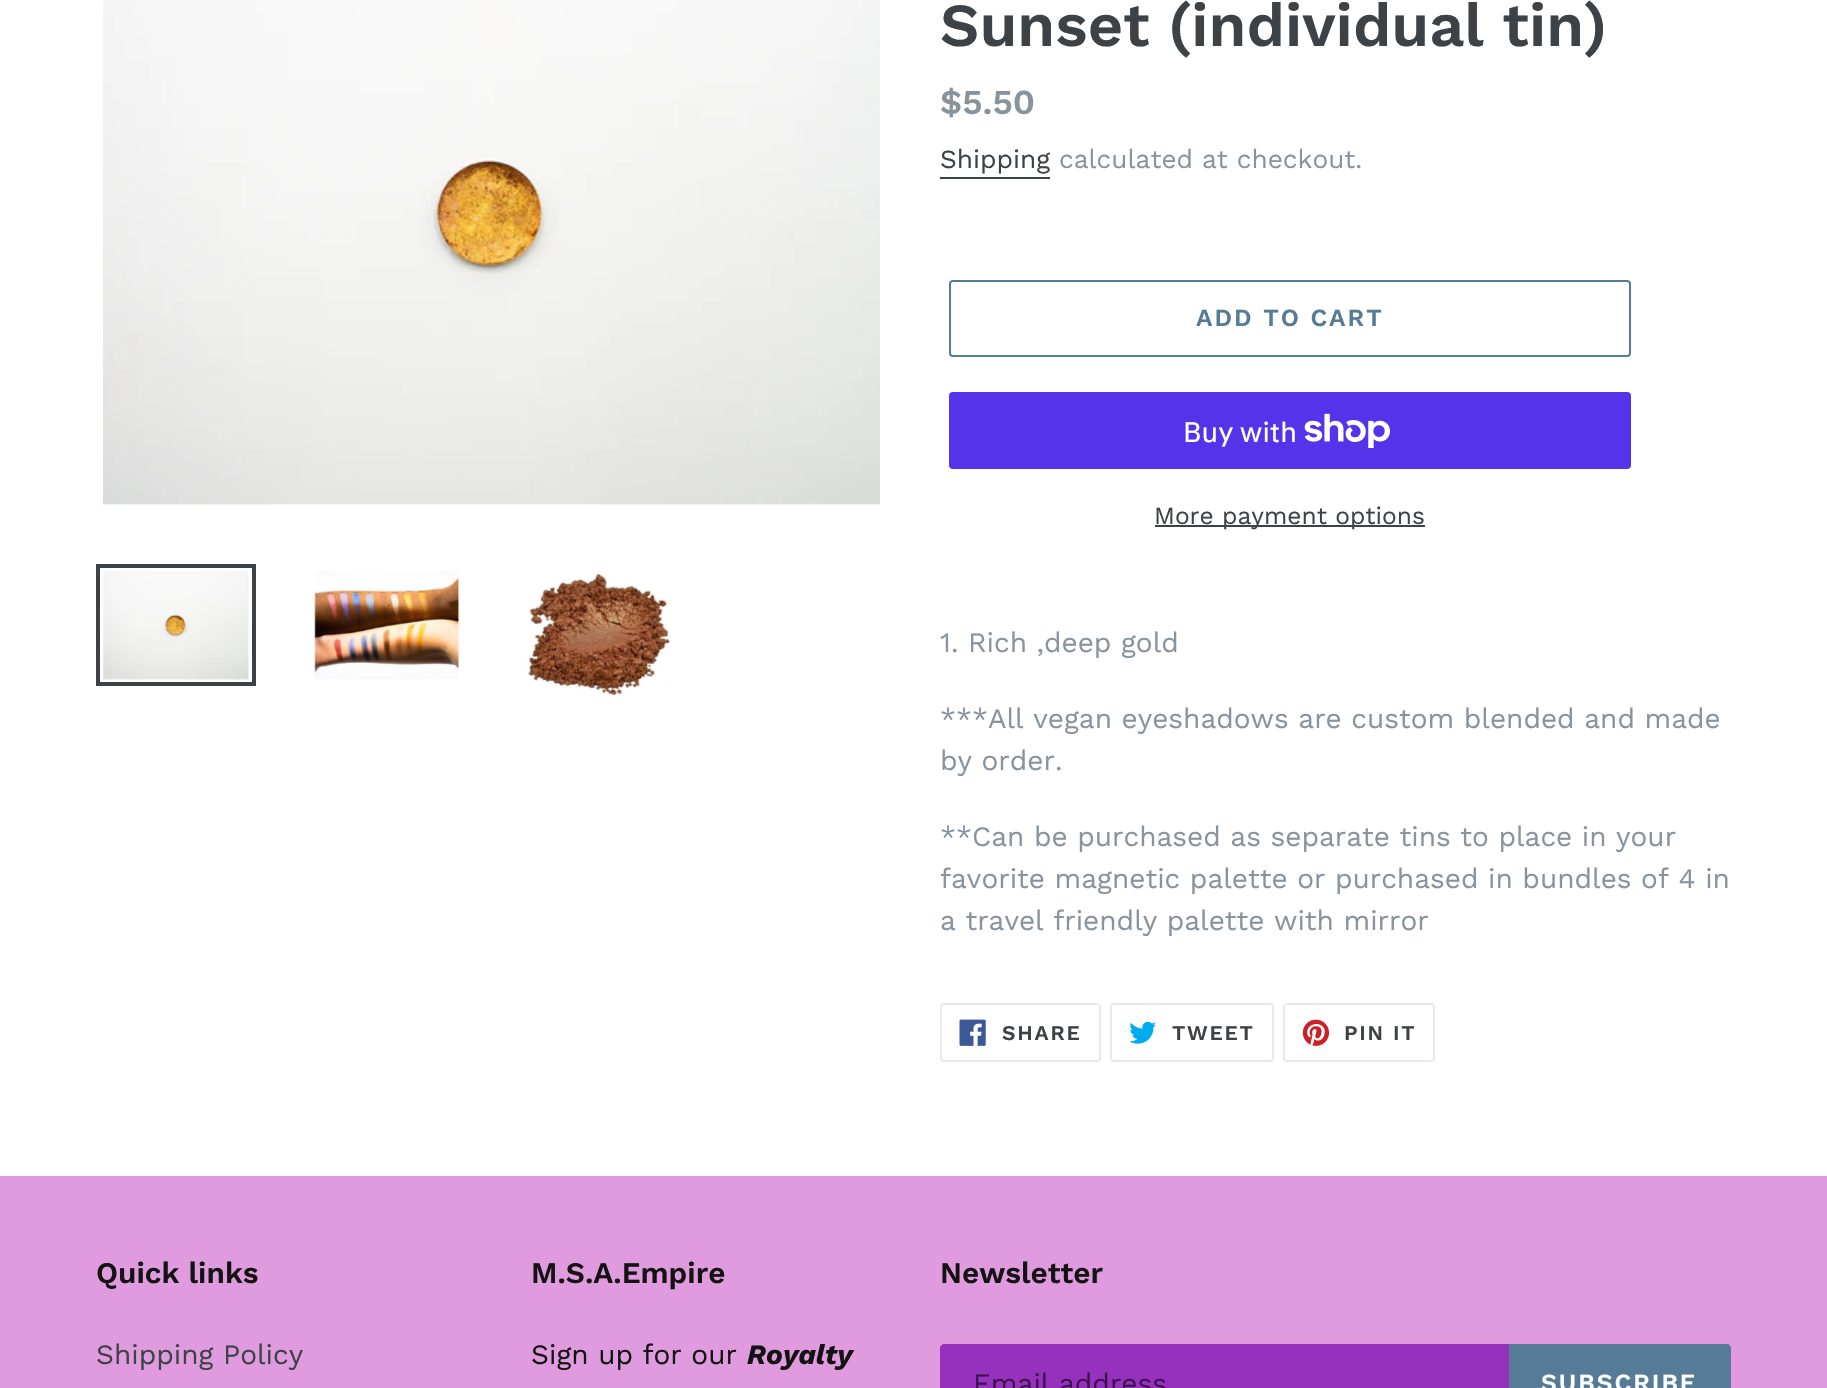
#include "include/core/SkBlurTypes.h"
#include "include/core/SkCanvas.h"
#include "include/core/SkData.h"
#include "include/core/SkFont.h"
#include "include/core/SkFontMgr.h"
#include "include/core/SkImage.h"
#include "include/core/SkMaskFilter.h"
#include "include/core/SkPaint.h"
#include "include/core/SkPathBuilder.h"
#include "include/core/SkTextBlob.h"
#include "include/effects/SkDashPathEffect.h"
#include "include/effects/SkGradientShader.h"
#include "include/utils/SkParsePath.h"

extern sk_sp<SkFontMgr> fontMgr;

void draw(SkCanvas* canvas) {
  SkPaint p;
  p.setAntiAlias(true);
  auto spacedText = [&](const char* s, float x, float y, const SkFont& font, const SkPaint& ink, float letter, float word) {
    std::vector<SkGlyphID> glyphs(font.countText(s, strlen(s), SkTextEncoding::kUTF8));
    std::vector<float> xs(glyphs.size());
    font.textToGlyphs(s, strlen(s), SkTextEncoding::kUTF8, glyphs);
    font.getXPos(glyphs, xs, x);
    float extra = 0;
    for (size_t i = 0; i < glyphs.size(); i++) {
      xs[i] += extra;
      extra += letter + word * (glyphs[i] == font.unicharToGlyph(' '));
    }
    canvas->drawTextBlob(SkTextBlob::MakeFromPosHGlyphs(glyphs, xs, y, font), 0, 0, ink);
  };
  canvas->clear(SK_ColorWHITE);
  canvas->drawImageRect(SkImages::DeferredFromEncodedData(SkData::MakeFromFileName("images/1.png")), SkRect::MakeLTRB(103, 0, 880, 505), SkSamplingOptions());
  p.setStyle(SkPaint::kStroke_Style);
  p.setStrokeWidth(4);
  p.setColor(SkColorSetRGB(61, 66, 70));
  canvas->drawRect(SkRect::MakeLTRB(98, 566, 254, 684), p);
  canvas->drawImageRect(SkImages::DeferredFromEncodedData(SkData::MakeFromFileName("images/2.png")), SkRect::MakeLTRB(103, 571, 249, 680), SkSamplingOptions());
  canvas->drawImageRect(SkImages::DeferredFromEncodedData(SkData::MakeFromFileName("images/3.png")), SkRect::MakeLTRB(314, 571, 460, 680), SkSamplingOptions());
  canvas->drawImageRect(SkImages::DeferredFromEncodedData(SkData::MakeFromFileName("images/4.png")), SkRect::MakeLTRB(527, 571, 671, 697), SkSamplingOptions());
  p.setStyle(SkPaint::kFill_Style);
  canvas->drawRect(SkRect::MakeLTRB(940, 177, 1050, 179), p);
  p.setStyle(SkPaint::kStroke_Style);
  p.setStrokeWidth(2);
  p.setColor(SkColorSetRGB(85, 123, 151));
  canvas->drawRoundRect(SkRect::MakeLTRB(950, 281, 1630, 356), 3, 3, p);
  p.setStyle(SkPaint::kFill_Style);
  p.setColor(SkColorSetRGB(84, 51, 235));
  canvas->drawRoundRect(SkRect::MakeLTRB(949, 392, 1631, 469), 4, 4, p);
  canvas->drawImageRect(SkImages::DeferredFromEncodedData(SkData::MakeFromFileName("images/5.png")), SkRect::MakeLTRB(1304, 413, 1390, 448), SkSamplingOptions());
  p.setColor(SkColorSetRGB(61, 66, 70));
  canvas->drawRect(SkRect::MakeLTRB(1155, 525, 1425, 527), p);
  p.setStyle(SkPaint::kStroke_Style);
  p.setColor(SkColorSetRGB(232, 233, 235));
  canvas->drawRoundRect(SkRect::MakeLTRB(941, 1004, 1100, 1061), 3, 3, p);
  canvas->drawImageRect(SkImages::DeferredFromEncodedData(SkData::MakeFromFileName("images/6.png")), SkRect::MakeLTRB(959, 1019, 986, 1046), SkSamplingOptions());
  canvas->drawRoundRect(SkRect::MakeLTRB(1111, 1004, 1273, 1061), 3, 3, p);
  canvas->drawImageRect(SkImages::DeferredFromEncodedData(SkData::MakeFromFileName("images/7.png")), SkRect::MakeLTRB(1129, 1021, 1156, 1044), SkSamplingOptions());
  canvas->drawRoundRect(SkRect::MakeLTRB(1284, 1004, 1434, 1061), 3, 3, p);
  canvas->drawImageRect(SkImages::DeferredFromEncodedData(SkData::MakeFromFileName("images/8.png")), SkRect::MakeLTRB(1302, 1019, 1330, 1046), SkSamplingOptions());
  p.setStyle(SkPaint::kFill_Style);
  p.setColor(SkColorSetRGB(224, 155, 222));
  canvas->drawRect(SkRect::MakeLTRB(0, 1176, 1827, 1388), p);
  p.setColor(SkColorSetRGB(150, 49, 190));
  canvas->drawPath(SkPathBuilder().moveTo(944, 1344).lineTo(1509, 1344).lineTo(1509, 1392).lineTo(944, 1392).cubicTo(942, 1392, 940, 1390, 940, 1388).lineTo(940, 1348).cubicTo(940, 1346, 942, 1344, 944, 1344).close().detach(), p);
  p.setColor(SkColorSetRGB(85, 123, 151));
  canvas->drawPath(SkPathBuilder().moveTo(1509, 1344).lineTo(1727, 1344).cubicTo(1729, 1344, 1731, 1346, 1731, 1348).lineTo(1731, 1388).cubicTo(1731, 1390, 1729, 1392, 1727, 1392).lineTo(1509, 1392).close().detach(), p);
  SkFont font1(fontMgr->matchFamilyStyle("Work Sans", SkFontStyle(600, SkFontStyle::kNormal_Width, SkFontStyle::kUpright_Slant)), 61.25f);
  font1.setSubpixel(true);
  p.setColor(SkColorSetRGB(61, 66, 70));
  canvas->drawString("Sunset (individual tin)", 940, 46, font1, p);
  SkFont font2(fontMgr->matchFamilyStyle("Work Sans", SkFontStyle(600, SkFontStyle::kNormal_Width, SkFontStyle::kUpright_Slant)), 35);
  font2.setSubpixel(true);
  p.setColor(SkColorSetRGB(136, 147, 157));
  canvas->drawString("$5.50", 940, 114, font2, p);
  SkFont font3(fontMgr->matchFamilyStyle("Work Sans", SkFontStyle::Normal()), 26.25f);
  font3.setSubpixel(true);
  p.setColor(SkColorSetRGB(61, 66, 70));
  canvas->drawString("Shipping", 940, 168, font3, p);
  p.setColor(SkColorSetRGB(136, 147, 157));
  canvas->drawString("calculated at checkout.", 1059, 168, font3, p);
  SkFont font4(fontMgr->matchFamilyStyle("Work Sans", SkFontStyle(600, SkFontStyle::kNormal_Width, SkFontStyle::kUpright_Slant)), 24.5f);
  font4.setSubpixel(true);
  p.setColor(SkColorSetRGB(85, 123, 151));
  spacedText("ADD TO CART", 1196, 326, font4, p, 2, 0);
  SkFont font5(fontMgr->matchFamilyStyle("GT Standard", SkFontStyle::Normal()), 28);
  font5.setSubpixel(true);
  p.setColor(SK_ColorWHITE);
  canvas->drawString("Buy with", 1183, 442, font5, p);
  SkFont font6(fontMgr->matchFamilyStyle("Work Sans", SkFontStyle::Normal()), 24.5f);
  font6.setSubpixel(true);
  p.setColor(SkColorSetRGB(61, 66, 70));
  canvas->drawString("More payment options", 1154, 524, font6, p);
  SkFont font7(fontMgr->matchFamilyStyle("Work Sans", SkFontStyle::Normal()), 28);
  font7.setSubpixel(true);
  p.setColor(SkColorSetRGB(136, 147, 157));
  canvas->drawString("1. Rich ,deep gold", 940, 652, font7, p);
  canvas->drawString("***All vegan eyeshadows are custom blended and made", 940, 728, font7, p);
  canvas->drawString("by order.", 940, 770, font7, p);
  canvas->drawString("**Can be purchased as separate tins to place in your", 940, 846, font7, p);
  canvas->drawString("favorite magnetic palette or purchased in bundles of 4 in", 940, 888, font7, p);
  canvas->drawString("a travel friendly palette with mirror", 940, 930, font7, p);
  SkFont font8(fontMgr->matchFamilyStyle("Work Sans", SkFontStyle(600, SkFontStyle::kNormal_Width, SkFontStyle::kUpright_Slant)), 21);
  font8.setSubpixel(true);
  p.setColor(SkColorSetRGB(61, 66, 70));
  spacedText("SHARE", 1002, 1040, font8, p, 1.75f, 0);
  spacedText("TWEET", 1172, 1040, font8, p, 1.75f, 0);
  spacedText("PIN IT", 1344, 1040, font8, p, 1.75f, 0);
  SkFont font9(fontMgr->matchFamilyStyle("Work Sans", SkFontStyle(600, SkFontStyle::kNormal_Width, SkFontStyle::kUpright_Slant)), 29.75f);
  font9.setSubpixel(true);
  p.setColor(SkColorSetRGB(20, 19, 19));
  canvas->drawString("Quick links", 96, 1283, font9, p);
  p.setColor(SkColorSetRGB(61, 66, 70));
  canvas->drawString("Shipping Policy", 96, 1364, font7, p);
  p.setColor(SkColorSetRGB(20, 19, 19));
  canvas->drawString("M.S.A.Empire", 531, 1283, font9, p);
  canvas->drawString("Sign up for our", 531, 1364, font7, p);
  SkFont font10(fontMgr->matchFamilyStyle("Work Sans", SkFontStyle::BoldItalic()), 28);
  font10.setSubpixel(true);
  canvas->drawString("Royalty", 747, 1364, font10, p);
  canvas->drawString("Newsletter", 940, 1283, font9, p);
  p.setColor(SkColorSetRGB(60, 20, 76));
  canvas->drawString("Email address", 973, 1393, font7, p);
  p.setColor(SK_ColorWHITE);
  spacedText("SUBSCRIBE", 1541, 1391, font4, p, 2, 0);
}
